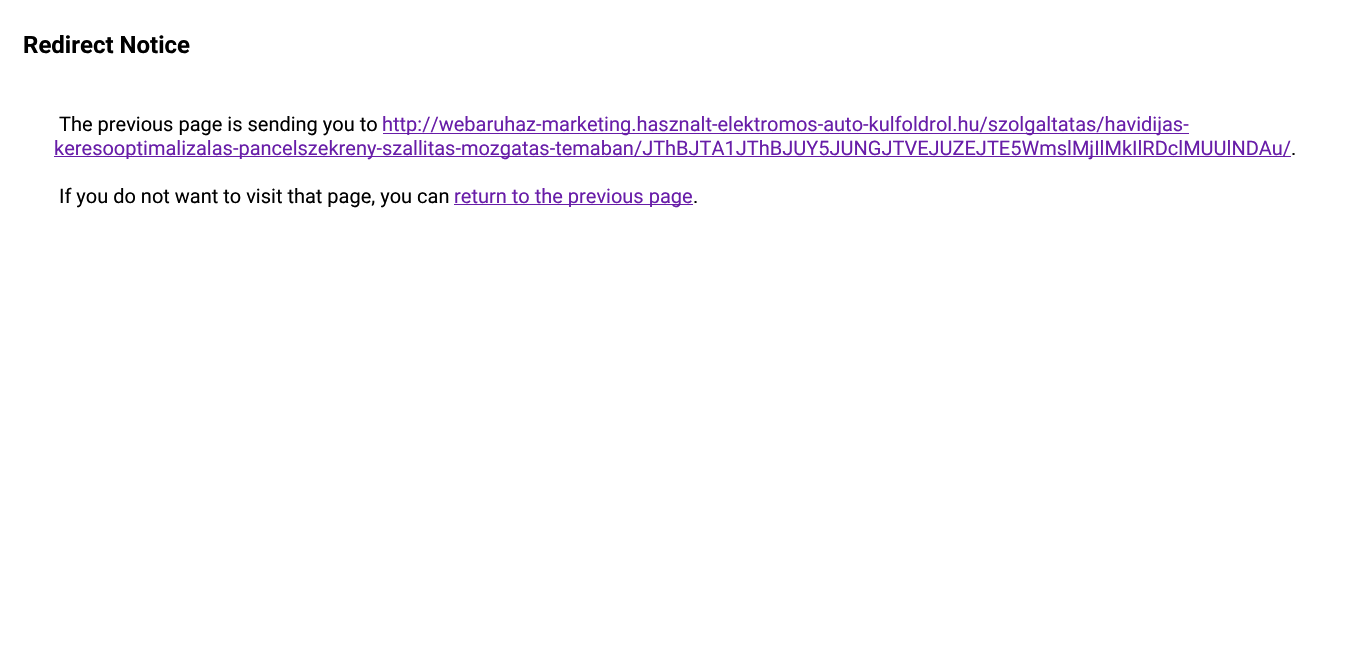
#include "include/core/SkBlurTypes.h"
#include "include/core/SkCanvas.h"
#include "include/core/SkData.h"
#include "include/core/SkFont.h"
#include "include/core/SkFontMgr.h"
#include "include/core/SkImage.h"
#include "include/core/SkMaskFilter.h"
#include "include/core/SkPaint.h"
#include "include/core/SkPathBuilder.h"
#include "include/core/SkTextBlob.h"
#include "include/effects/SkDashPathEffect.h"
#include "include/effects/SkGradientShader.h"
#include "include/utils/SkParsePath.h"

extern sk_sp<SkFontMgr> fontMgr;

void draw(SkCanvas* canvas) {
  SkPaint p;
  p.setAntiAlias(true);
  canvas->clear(SK_ColorWHITE);
  p.setColor(SkColorSetRGB(104, 29, 168));
  canvas->drawRect(SkRect::MakeLTRB(383, 133, 1189, 134), p);
  canvas->drawRect(SkRect::MakeLTRB(54, 156, 1291, 157), p);
  canvas->drawRect(SkRect::MakeLTRB(454, 204, 693, 205), p);
  SkFont font1(fontMgr->matchFamilyStyle("Roboto", SkFontStyle::Bold()), 24);
  font1.setSubpixel(true);
  p.setColor(SK_ColorBLACK);
  canvas->drawString("Redirect Notice", 23, 53, font1, p);
  SkFont font2(fontMgr->matchFamilyStyle("Roboto", SkFontStyle::Normal()), 20);
  font2.setSubpixel(true);
  canvas->drawString("The previous page is sending you to", 59, 131, font2, p);
  p.setColor(SkColorSetRGB(104, 29, 168));
  canvas->drawString("http://webaruhaz-marketing.hasznalt-elektromos-auto-kulfoldrol.hu/szolgaltatas/havidijas-", 382, 131, font2, p);
  canvas->drawString("keresooptimalizalas-pancelszekreny-szallitas-mozgatas-temaban/JThBJTA1JThBJUY5JUNGJTVEJUZEJTE5WmslMjIlMkIlRDclMUUlNDAu/", 54, 155, font2, p);
  p.setColor(SK_ColorBLACK);
  canvas->drawString(".", 1291, 155, font2, p);
  canvas->drawString("If you do not want to visit that page, you can", 59, 203, font2, p);
  p.setColor(SkColorSetRGB(104, 29, 168));
  canvas->drawString("return to the previous page", 454, 203, font2, p);
  p.setColor(SK_ColorBLACK);
  canvas->drawString(".", 693, 203, font2, p);
}
